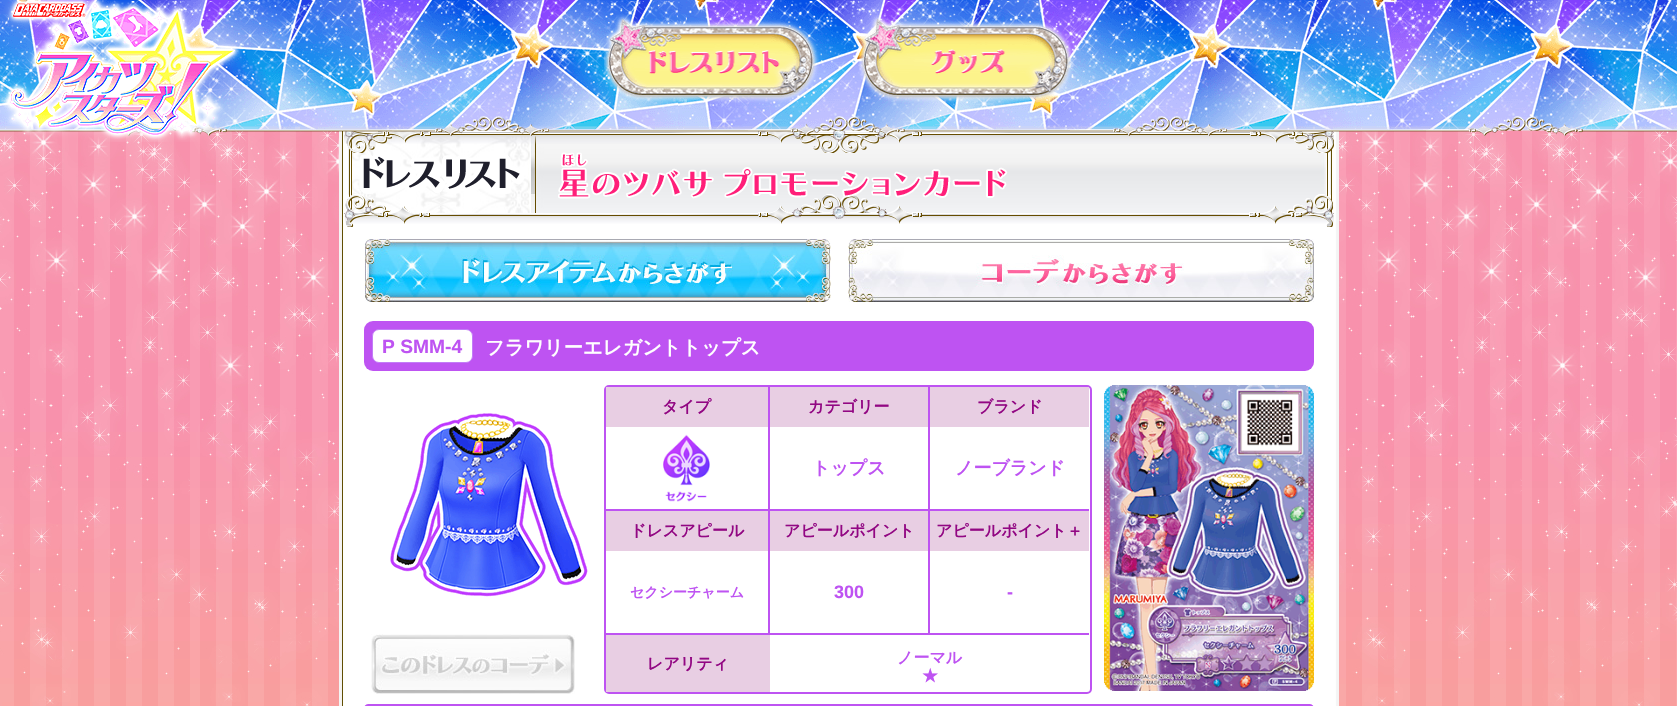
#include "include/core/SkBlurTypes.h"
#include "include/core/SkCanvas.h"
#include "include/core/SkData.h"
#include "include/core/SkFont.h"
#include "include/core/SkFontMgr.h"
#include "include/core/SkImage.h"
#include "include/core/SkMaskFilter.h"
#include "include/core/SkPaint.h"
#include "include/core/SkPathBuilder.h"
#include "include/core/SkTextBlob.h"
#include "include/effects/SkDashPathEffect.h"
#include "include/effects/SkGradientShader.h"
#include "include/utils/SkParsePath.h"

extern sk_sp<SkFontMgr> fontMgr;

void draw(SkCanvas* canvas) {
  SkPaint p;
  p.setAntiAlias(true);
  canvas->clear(SK_ColorWHITE);
  canvas->drawImageRect(SkImages::DeferredFromEncodedData(SkData::MakeFromFileName("images/1.png")), SkRect::MakeLTRB(0, 0, 1677, 706), SkSamplingOptions());
  canvas->drawImageRect(SkImages::DeferredFromEncodedData(SkData::MakeFromFileName("images/6.png")), SkRect::MakeLTRB(339, 0, 1339, 706), SkSamplingOptions());
  canvas->drawImageRect(SkImages::DeferredFromEncodedData(SkData::MakeFromFileName("images/8.png")), SkRect::MakeLTRB(348, 132, 1334, 215), SkSamplingOptions());
  canvas->drawImageRect(SkImages::DeferredFromEncodedData(SkData::MakeFromFileName("images/11.png")), SkRect::MakeLTRB(344, 194, 1334, 227), SkSamplingOptions());
  canvas->drawImageRect(SkImages::DeferredFromEncodedData(SkData::MakeFromFileName("images/10.png")), SkRect::MakeLTRB(558, 152, 1008, 199), SkSamplingOptions());
  canvas->drawImageRect(SkImages::DeferredFromEncodedData(SkData::MakeFromFileName("images/7.png")), SkRect::MakeLTRB(344, 129, 1334, 153), SkSamplingOptions());
  canvas->drawImageRect(SkImages::DeferredFromEncodedData(SkData::MakeFromFileName("images/2.png")), SkRect::MakeLTRB(0, 0, 1677, 136), SkSamplingOptions());
  canvas->drawImageRect(SkImages::DeferredFromEncodedData(SkData::MakeFromFileName("images/3.png")), SkRect::MakeLTRB(0, 0, 242, 142), SkSamplingOptions());
  canvas->drawImageRect(SkImages::DeferredFromEncodedData(SkData::MakeFromFileName("images/4.png")), SkRect::MakeLTRB(604, 14, 819, 103), SkSamplingOptions());
  canvas->drawImageRect(SkImages::DeferredFromEncodedData(SkData::MakeFromFileName("images/5.png")), SkRect::MakeLTRB(859, 15, 1074, 103), SkSamplingOptions());
  canvas->drawImageRect(SkImages::DeferredFromEncodedData(SkData::MakeFromFileName("images/9.png")), SkRect::MakeLTRB(359, 155, 524, 194), SkSamplingOptions());
  canvas->drawImageRect(SkImages::DeferredFromEncodedData(SkData::MakeFromFileName("images/12.png")), SkRect::MakeLTRB(365, 239, 831, 302), SkSamplingOptions());
  canvas->drawImageRect(SkImages::DeferredFromEncodedData(SkData::MakeFromFileName("images/13.png")), SkRect::MakeLTRB(848, 239, 1314, 302), SkSamplingOptions());
  p.setColor(SkColorSetRGB(190, 83, 242));
  canvas->drawRoundRect(SkRect::MakeLTRB(364, 321, 1314, 371), 9, 9, p);
  p.setColor(SK_ColorWHITE);
  canvas->drawRoundRect(SkRect::MakeLTRB(372.5f, 329.5f, 472.5f, 362.5f), 6.5f, 6.5f, p);
  p.setStyle(SkPaint::kStroke_Style);
  p.setStrokeWidth(1);
  p.setColor(SkColorSetRGB(194, 124, 247));
  canvas->drawRoundRect(SkRect::MakeLTRB(372.5f, 329.5f, 472.5f, 362.5f), 6.5f, 6.5f, p);
  canvas->drawImageRect(SkImages::DeferredFromEncodedData(SkData::MakeFromFileName("images/14.png")), SkRect::MakeLTRB(371, 634, 575, 694), SkSamplingOptions());
  canvas->drawImageRect(SkImages::DeferredFromEncodedData(SkData::MakeFromFileName("images/15.png")), SkRect::MakeLTRB(390, 413, 588, 597), SkSamplingOptions());
  canvas->drawImageRect(SkImages::DeferredFromEncodedData(SkData::MakeFromFileName("images/16.png")), SkRect::MakeLTRB(1104, 385, 1314, 691), SkSamplingOptions());
  p.setStrokeWidth(2);
  p.setColor(SkColorSetRGB(190, 83, 242));
  canvas->drawRoundRect(SkRect::MakeLTRB(605, 386, 1091, 693), 4, 4, p);
  p.setStyle(SkPaint::kFill_Style);
  canvas->drawRect(SkRect::MakeLTRB(768, 387, 770, 635), p);
  canvas->drawRect(SkRect::MakeLTRB(606, 509, 770, 511), p);
  p.setColor(SkColorSetRGB(232, 206, 227));
  canvas->drawRect(SkRect::MakeLTRB(606, 387, 768, 427), p);
  canvas->drawImageRect(SkImages::DeferredFromEncodedData(SkData::MakeFromFileName("images/17.png")), SkRect::MakeLTRB(663, 434, 710, 502), SkSamplingOptions());
  p.setColor(SkColorSetRGB(190, 83, 242));
  canvas->drawRect(SkRect::MakeLTRB(928, 387, 930, 635), p);
  canvas->drawRect(SkRect::MakeLTRB(770, 509, 1089, 511), p);
  p.setColor(SkColorSetRGB(232, 206, 227));
  canvas->drawRect(SkRect::MakeLTRB(770, 387, 928, 427), p);
  canvas->drawRect(SkRect::MakeLTRB(930, 387, 1089, 427), p);
  p.setColor(SkColorSetRGB(190, 83, 242));
  canvas->drawRect(SkRect::MakeLTRB(606, 633, 1089, 635), p);
  p.setColor(SkColorSetRGB(232, 206, 227));
  canvas->drawRect(SkRect::MakeLTRB(606, 511, 768, 551), p);
  canvas->drawRect(SkRect::MakeLTRB(770, 511, 928, 551), p);
  canvas->drawRect(SkRect::MakeLTRB(930, 511, 1089, 551), p);
  canvas->drawRect(SkRect::MakeLTRB(606, 635, 770, 692), p);
  p.setStyle(SkPaint::kStroke_Style);
  p.setColor(SkColorSetRGB(190, 83, 242));
  canvas->drawRoundRect(SkRect::MakeLTRB(365, 705, 1313, 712), 4, 4, p);
  SkFont font1(fontMgr->matchFamilyStyle("Liberation Sans", SkFontStyle::Bold()), 19.25f);
  font1.setSubpixel(true);
  p.setStyle(SkPaint::kFill_Style);
  canvas->drawString("P SMM-4", 382, 353, font1, p);
  SkFont font2(fontMgr->matchFamilyStyle("WenQuanYi Zen Hei", SkFontStyle::Bold()), 19.25f);
  font2.setSubpixel(true);
  p.setColor(SK_ColorWHITE);
  canvas->drawString("フラワリーエレガントトップス", 485, 354, font2, p);
  SkFont font3(fontMgr->matchFamilyStyle("WenQuanYi Zen Hei", SkFontStyle::Bold()), 16);
  font3.setSubpixel(true);
  p.setColor(SkColorSetRGB(146, 7, 131));
  canvas->drawString("タイプ", 662, 412, font3, p);
  canvas->drawString("カテゴリー", 808, 412, font3, p);
  SkFont font4(fontMgr->matchFamilyStyle("WenQuanYi Zen Hei", SkFontStyle::Bold()), 18);
  font4.setSubpixel(true);
  p.setColor(SkColorSetRGB(190, 83, 242));
  canvas->drawString("トップス", 812, 474, font4, p);
  p.setColor(SkColorSetRGB(146, 7, 131));
  canvas->drawString("ブランド", 977, 412, font3, p);
  p.setColor(SkColorSetRGB(190, 83, 242));
  canvas->drawString("ノーブランド", 955, 474, font4, p);
  p.setColor(SkColorSetRGB(146, 7, 131));
  canvas->drawString("ドレスアピール", 630, 536, font3, p);
  SkFont font5(fontMgr->matchFamilyStyle("WenQuanYi Zen Hei", SkFontStyle::Bold()), 14);
  font5.setSubpixel(true);
  p.setColor(SkColorSetRGB(190, 83, 242));
  canvas->drawString("セクシーチャーム", 630, 597, font5, p);
  p.setColor(SkColorSetRGB(146, 7, 131));
  canvas->drawString("アピールポイント", 784, 536, font3, p);
  SkFont font6(fontMgr->matchFamilyStyle("Liberation Sans", SkFontStyle::Bold()), 18);
  font6.setSubpixel(true);
  p.setColor(SkColorSetRGB(190, 83, 242));
  canvas->drawString("300", 834, 598, font6, p);
  p.setColor(SkColorSetRGB(146, 7, 131));
  canvas->drawString("アピールポイント＋", 936, 536, font3, p);
  p.setColor(SkColorSetRGB(190, 83, 242));
  canvas->drawString("-", 1007, 598, font6, p);
  p.setColor(SkColorSetRGB(146, 7, 131));
  canvas->drawString("レアリティ", 647, 669, font3, p);
  p.setColor(SkColorSetRGB(190, 83, 242));
  canvas->drawString("ノーマル", 897, 663, font3, p);
  canvas->drawString("★", 922, 681, font3, p);
}
